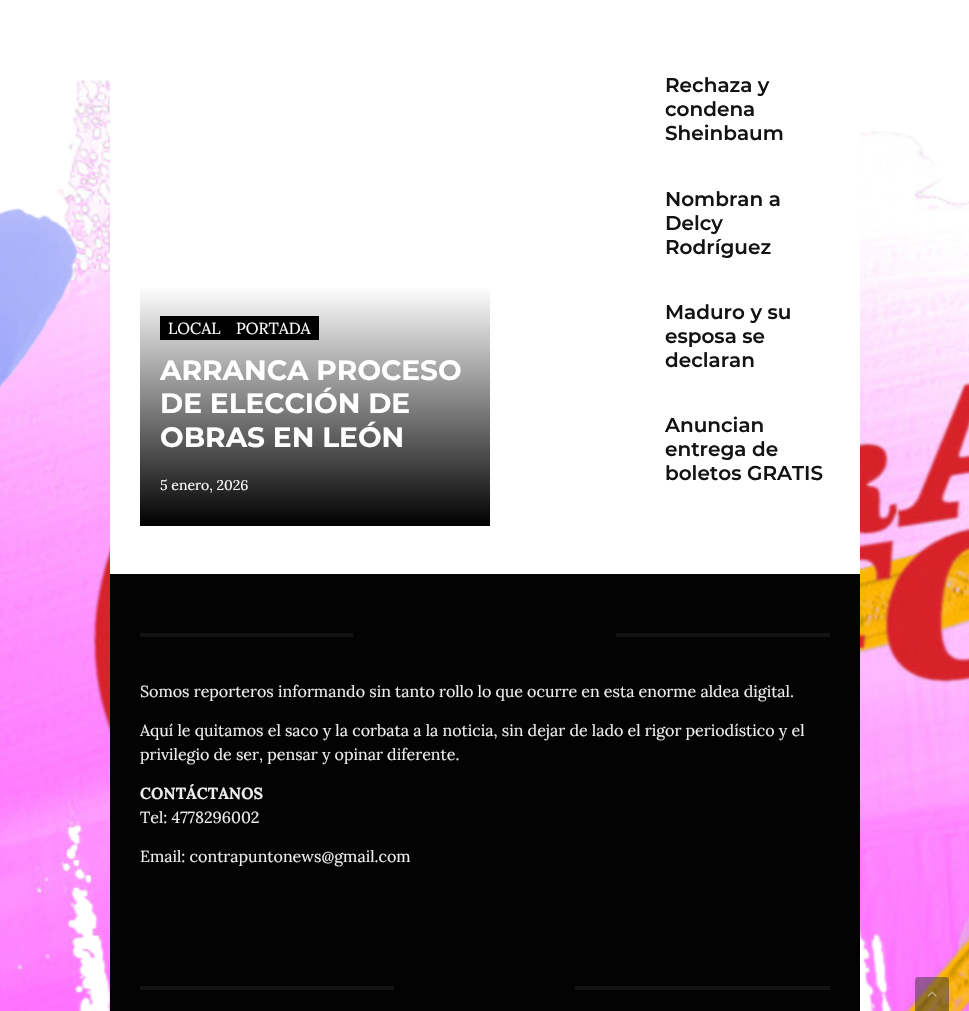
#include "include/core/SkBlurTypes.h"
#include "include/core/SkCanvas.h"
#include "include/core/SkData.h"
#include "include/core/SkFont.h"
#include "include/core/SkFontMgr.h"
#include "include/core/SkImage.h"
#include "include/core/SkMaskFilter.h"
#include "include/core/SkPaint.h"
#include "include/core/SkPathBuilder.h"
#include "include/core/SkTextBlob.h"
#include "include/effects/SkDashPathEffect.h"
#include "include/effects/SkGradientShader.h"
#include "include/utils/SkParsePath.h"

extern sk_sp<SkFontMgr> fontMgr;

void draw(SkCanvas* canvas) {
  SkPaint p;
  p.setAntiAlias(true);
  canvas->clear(SK_ColorWHITE);
  canvas->drawImageRect(SkImages::DeferredFromEncodedData(SkData::MakeFromFileName("images/1.png")), SkRect::MakeLTRB(0, 80, 969, 1011), SkSamplingOptions());
  p.setColor(SK_ColorWHITE);
  canvas->drawRect(SkRect::MakeLTRB(110, 80, 860, 574), p);
  {
    const SkColor colors[] = {SK_ColorWHITE, SK_ColorBLACK};
    const float stops[] = {0, 1};
    const SkPoint ends[] = {{315, 286}, {315, 526}};
    p.setShader(SkGradientShader::MakeLinear(ends, colors, stops, 2, SkTileMode::kClamp));
    p.setAlpha(255);
  }
  canvas->drawRect(SkRect::MakeLTRB(140, 288, 490, 526), p);
  p.setShader(nullptr);
  p.setColor(SK_ColorBLACK);
  canvas->drawRect(SkRect::MakeLTRB(160, 316, 319, 340), p);
  p.setColor(SkColorSetRGB(3, 3, 3));
  canvas->drawRect(SkRect::MakeLTRB(110, 574, 860, 1011), p);
  p.setColor(SkColorSetRGB(19, 19, 19));
  canvas->drawRect(SkRect::MakeLTRB(140, 633, 830, 637), p);
  p.setColor(SkColorSetRGB(3, 3, 3));
  canvas->drawRect(SkRect::MakeLTRB(353, 633, 616, 637), p);
  p.setColor(SkColorSetRGB(19, 19, 19));
  canvas->drawRect(SkRect::MakeLTRB(140, 986, 830, 990), p);
  p.setColor(SkColorSetRGB(3, 3, 3));
  canvas->drawRect(SkRect::MakeLTRB(394, 986, 575, 990), p);
  p.setColor(SkColorSetARGB(128, 51, 51, 51));
  canvas->drawPath(SkPathBuilder().moveTo(918, 977).lineTo(946, 977).cubicTo(947.5f, 977, 949, 978.5f, 949, 980).lineTo(949, 1011).lineTo(915, 1011).lineTo(915, 980).cubicTo(915, 978.5f, 916.5f, 977, 918, 977).close().detach(), p);
  canvas->drawImageRect(SkImages::DeferredFromEncodedData(SkData::MakeFromFileName("images/2.png")), SkRect::MakeLTRB(927, 991, 937, 997), SkSamplingOptions());
  SkFont font1(fontMgr->matchFamilyStyle("Lora", SkFontStyle::Normal()), 16);
  font1.setSubpixel(true);
  p.setColor(SK_ColorWHITE);
  canvas->drawString("LOCAL", 168, 334, font1, p);
  canvas->drawString("PORTADA", 236, 334, font1, p);
  SkFont font2(fontMgr->matchFamilyStyle("Montserrat", SkFontStyle::Bold()), 28);
  font2.setSubpixel(true);
  canvas->drawString("ARRANCA PROCESO", 160, 380, font2, p);
  canvas->drawString("DE ELECCIÓN DE", 160, 413, font2, p);
  canvas->drawString("OBRAS EN LEÓN", 160, 447, font2, p);
  SkFont font3(fontMgr->matchFamilyStyle("Lora", SkFontStyle::Normal()), 14);
  font3.setSubpixel(true);
  canvas->drawString("5 enero, 2026", 160, 490, font3, p);
  SkFont font4(fontMgr->matchFamilyStyle("Montserrat", SkFontStyle(600, SkFontStyle::kNormal_Width, SkFontStyle::kUpright_Slant)), 20);
  font4.setSubpixel(true);
  p.setColor(SkColorSetRGB(19, 19, 19));
  canvas->drawString("Rechaza y", 665, 92, font4, p);
  canvas->drawString("condena", 665, 116, font4, p);
  canvas->drawString("Sheinbaum", 665, 140, font4, p);
  canvas->drawString("Nombran a", 665, 206, font4, p);
  canvas->drawString("Delcy", 665, 230, font4, p);
  canvas->drawString("Rodríguez", 665, 254, font4, p);
  canvas->drawString("Maduro y su", 665, 319, font4, p);
  canvas->drawString("esposa se", 665, 343, font4, p);
  canvas->drawString("declaran", 665, 367, font4, p);
  canvas->drawString("Anuncian", 665, 432, font4, p);
  canvas->drawString("entrega de", 665, 456, font4, p);
  canvas->drawString("boletos GRATIS", 665, 480, font4, p);
  p.setColor(SkColorSetRGB(238, 238, 238));
  canvas->drawString("Somos reporteros informando sin tanto rollo lo que ocurre en esta enorme aldea digital.", 140, 697, font1, p);
  canvas->drawString("Aquí le quitamos el saco y la corbata a la noticia, sin dejar de lado el rigor periodístico y el", 140, 736, font1, p);
  canvas->drawString("privilegio de ser, pensar y opinar diferente.", 140, 760, font1, p);
  SkFont font5(fontMgr->matchFamilyStyle("Lora", SkFontStyle::Bold()), 16);
  font5.setSubpixel(true);
  canvas->drawString("CONTÁCTANOS", 140, 799, font5, p);
  canvas->save();
  canvas->clipRect(SkRect::MakeLTRB(140, 618, 830, 883));
  canvas->drawString("Tel: 4778296002", 140, 823, font1, p);
  canvas->restore();
  canvas->drawString("Email: contrapuntonews@gmail.com", 140, 862, font1, p);
}
